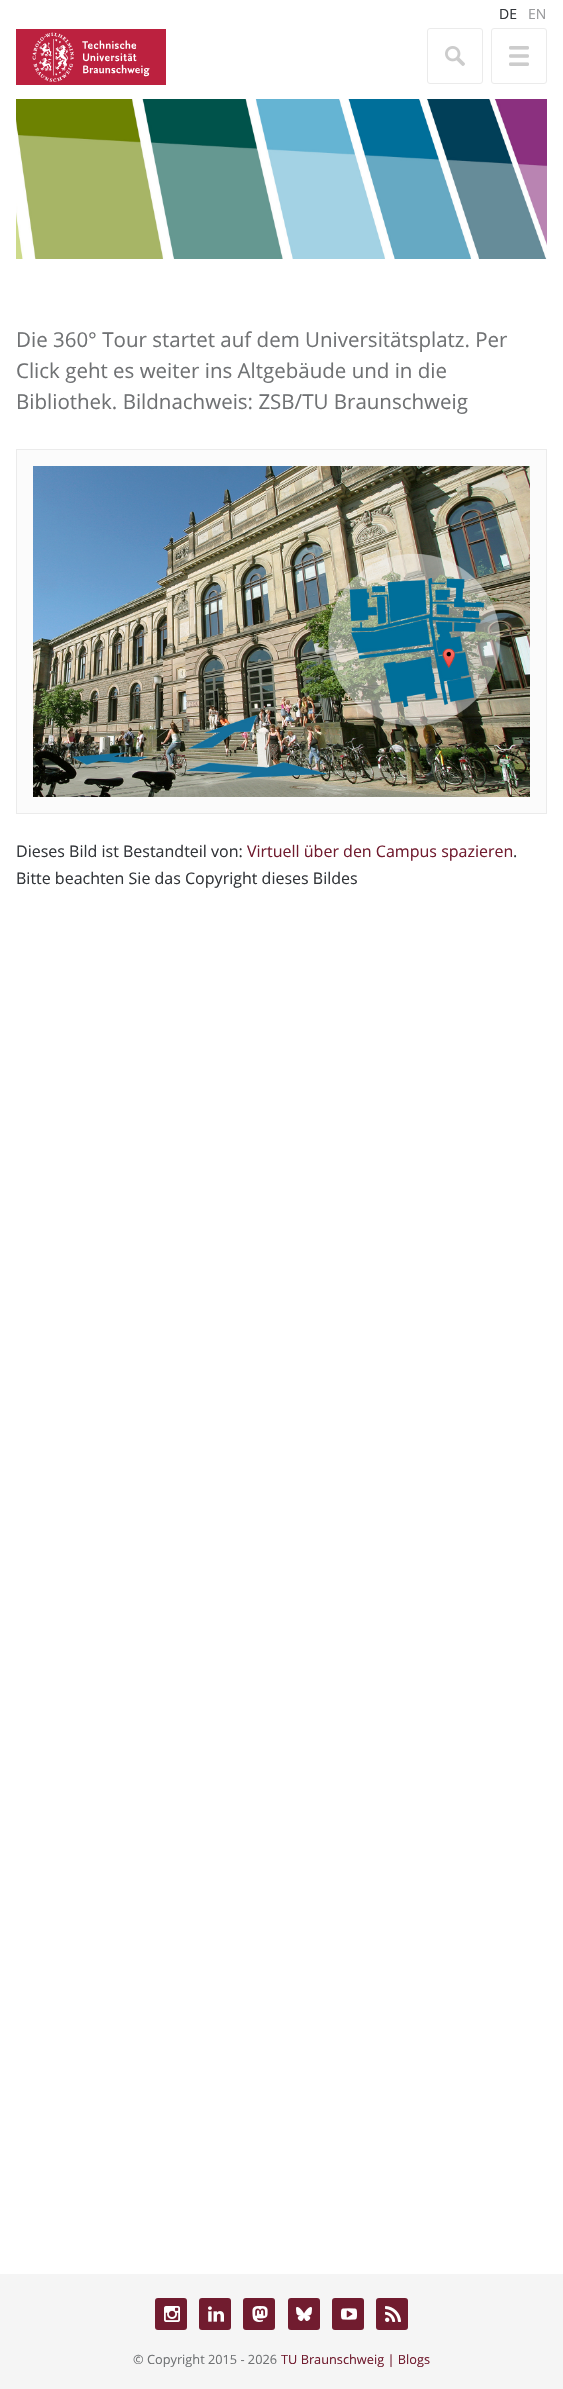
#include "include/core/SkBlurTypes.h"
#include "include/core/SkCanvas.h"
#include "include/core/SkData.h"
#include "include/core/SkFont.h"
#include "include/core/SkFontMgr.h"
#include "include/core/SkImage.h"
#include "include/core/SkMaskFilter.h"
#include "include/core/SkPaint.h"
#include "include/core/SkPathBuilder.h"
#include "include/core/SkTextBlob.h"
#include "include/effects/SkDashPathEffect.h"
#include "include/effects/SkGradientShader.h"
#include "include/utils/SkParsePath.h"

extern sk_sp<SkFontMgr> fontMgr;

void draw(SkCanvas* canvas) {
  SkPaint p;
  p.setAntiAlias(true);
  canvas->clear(SK_ColorWHITE);
  canvas->drawImageRect(SkImages::DeferredFromEncodedData(SkData::MakeFromFileName("images/1.png")), SkRect::MakeLTRB(16, 29, 166, 85), SkSamplingOptions());
  canvas->drawImageRect(SkImages::DeferredFromEncodedData(SkData::MakeFromFileName("images/2.png")), SkRect::MakeLTRB(16, 99, 547, 259), SkSamplingOptions());
  canvas->drawImageRect(SkImages::DeferredFromEncodedData(SkData::MakeFromFileName("images/3.png")), SkRect::MakeLTRB(445, 46, 465, 66), SkSamplingOptions());
  p.setStyle(SkPaint::kStroke_Style);
  p.setStrokeWidth(1);
  p.setColor(SkColorSetRGB(235, 235, 235));
  canvas->drawRoundRect(SkRect::MakeLTRB(427.5f, 28.5f, 482.5f, 83.5f), 2.5f, 2.5f, p);
  canvas->drawImageRect(SkImages::DeferredFromEncodedData(SkData::MakeFromFileName("images/4.png")), SkRect::MakeLTRB(509, 46, 529, 66), SkSamplingOptions());
  canvas->drawRoundRect(SkRect::MakeLTRB(491.5f, 28.5f, 546.5f, 83.5f), 2.5f, 2.5f, p);
  p.setStyle(SkPaint::kFill_Style);
  p.setColor(SkColorSetRGB(251, 251, 251));
  canvas->drawRect(SkRect::MakeLTRB(16.5f, 449.5f, 546.5f, 813.5f), p);
  p.setStyle(SkPaint::kStroke_Style);
  p.setColor(SkColorSetRGB(235, 235, 235));
  canvas->drawRect(SkRect::MakeLTRB(16.5f, 449.5f, 546.5f, 813.5f), p);
  canvas->drawImageRect(SkImages::DeferredFromEncodedData(SkData::MakeFromFileName("images/5.png")), SkRect::MakeLTRB(33, 466, 530, 797), SkSamplingOptions());
  p.setStyle(SkPaint::kFill_Style);
  p.setColor(SkColorSetRGB(245, 245, 245));
  canvas->drawRect(SkRect::MakeLTRB(0, 2274, 563, 2389), p);
  p.setColor(SkColorSetRGB(113, 28, 47));
  canvas->drawRoundRect(SkRect::MakeLTRB(155, 2298, 187, 2330), 3, 3, p);
  canvas->drawImageRect(SkImages::DeferredFromEncodedData(SkData::MakeFromFileName("images/6.png")), SkRect::MakeLTRB(164, 2306, 180, 2322), SkSamplingOptions());
  canvas->drawRoundRect(SkRect::MakeLTRB(199, 2298, 231, 2330), 3, 3, p);
  canvas->drawImageRect(SkImages::DeferredFromEncodedData(SkData::MakeFromFileName("images/7.png")), SkRect::MakeLTRB(208, 2306, 224, 2322), SkSamplingOptions());
  canvas->drawRoundRect(SkRect::MakeLTRB(243, 2298, 275, 2330), 3, 3, p);
  canvas->drawImageRect(SkImages::DeferredFromEncodedData(SkData::MakeFromFileName("images/8.png")), SkRect::MakeLTRB(252, 2306, 268, 2322), SkSamplingOptions());
  canvas->drawRoundRect(SkRect::MakeLTRB(288, 2298, 320, 2330), 3, 3, p);
  canvas->drawImageRect(SkImages::DeferredFromEncodedData(SkData::MakeFromFileName("images/9.png")), SkRect::MakeLTRB(296, 2307, 312, 2321), SkSamplingOptions());
  canvas->drawRoundRect(SkRect::MakeLTRB(332, 2298, 364, 2330), 3, 3, p);
  canvas->drawImageRect(SkImages::DeferredFromEncodedData(SkData::MakeFromFileName("images/10.png")), SkRect::MakeLTRB(341, 2308, 357, 2320), SkSamplingOptions());
  canvas->drawRoundRect(SkRect::MakeLTRB(376, 2298, 408, 2330), 3, 3, p);
  canvas->drawImageRect(SkImages::DeferredFromEncodedData(SkData::MakeFromFileName("images/11.png")), SkRect::MakeLTRB(385, 2306, 401, 2322), SkSamplingOptions());
  SkFont font1(fontMgr->matchFamilyStyle("Open Sans", SkFontStyle::Normal()), 14);
  font1.setSubpixel(true);
  p.setColor(SkColorSetRGB(50, 53, 57));
  canvas->drawString("DE", 499, 19, font1, p);
  p.setColor(SkColorSetRGB(153, 154, 156));
  canvas->drawString("EN", 528, 19, font1, p);
  SkFont font2(fontMgr->matchFamilyStyle("Open Sans", SkFontStyle::Normal()), 20.5f);
  font2.setSubpixel(true);
  p.setColor(SkColorSetRGB(112, 114, 116));
  canvas->drawString("Die 360° Tour startet auf dem Universitätsplatz. Per", 16, 347, font2, p);
  canvas->drawString("Click geht es weiter ins Altgebäude und in die", 16, 378, font2, p);
  canvas->drawString("Bibliothek. Bildnachweis: ZSB/TU Braunschweig", 16, 409, font2, p);
  SkFont font3(fontMgr->matchFamilyStyle("Open Sans", SkFontStyle::Normal()), 16);
  font3.setSubpixel(true);
  p.setColor(SkColorSetRGB(50, 53, 57));
  canvas->drawString("Dieses Bild ist Bestandteil von:", 16, 857, font3, p);
  p.setColor(SkColorSetRGB(113, 28, 47));
  canvas->drawString("Virtuell über den Campus spazieren", 247, 857, font3, p);
  p.setColor(SkColorSetRGB(50, 53, 57));
  canvas->drawString(".", 513, 857, font3, p);
  canvas->drawString("Bitte beachten Sie das Copyright dieses Bildes", 16, 884, font3, p);
  SkFont font4(fontMgr->matchFamilyStyle("Open Sans", SkFontStyle::Normal()), 12.75f);
  font4.setSubpixel(true);
  p.setColor(SkColorSetRGB(112, 114, 116));
  canvas->drawString("© Copyright 2015 - 2026", 133, 2364, font4, p);
  p.setColor(SkColorSetRGB(113, 28, 47));
  canvas->drawString("TU Braunschweig | Blogs", 281, 2364, font4, p);
}
